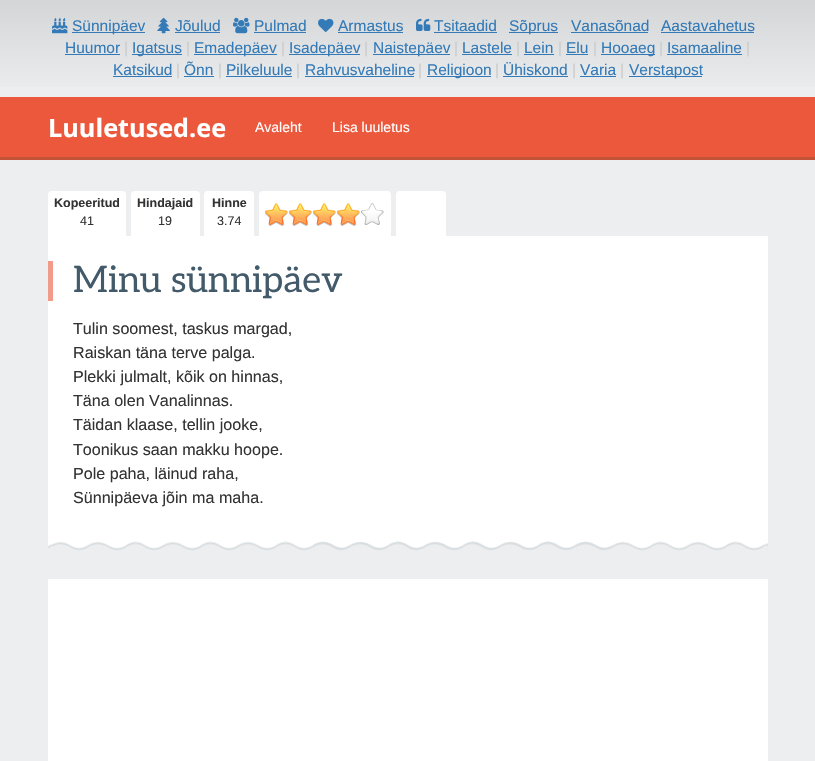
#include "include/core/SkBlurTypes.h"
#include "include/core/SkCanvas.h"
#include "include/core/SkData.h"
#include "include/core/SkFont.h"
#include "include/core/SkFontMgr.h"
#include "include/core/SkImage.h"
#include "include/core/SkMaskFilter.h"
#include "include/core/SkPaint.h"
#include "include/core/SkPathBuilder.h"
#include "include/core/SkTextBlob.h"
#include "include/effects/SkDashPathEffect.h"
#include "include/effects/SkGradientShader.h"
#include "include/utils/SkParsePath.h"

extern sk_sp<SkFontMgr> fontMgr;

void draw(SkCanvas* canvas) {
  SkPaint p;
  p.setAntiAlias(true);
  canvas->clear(SkColorSetRGB(236, 238, 240));
  {
    const SkColor colors[] = {SkColorSetRGB(211, 213, 215), SkColorSetRGB(236, 238, 240)};
    const float stops[] = {0, 1};
    const SkPoint ends[] = {{408, 0}, {408, 97}};
    p.setShader(SkGradientShader::MakeLinear(ends, colors, stops, 2, SkTileMode::kClamp));
    p.setAlpha(255);
  }
  canvas->drawRect(SkRect::MakeLTRB(0, 0, 815, 87), p);
  canvas->drawImageRect(SkImages::DeferredFromEncodedData(SkData::MakeFromFileName("images/1.png")), SkRect::MakeLTRB(52, 17, 68, 34), SkSamplingOptions());
  p.setShader(nullptr);
  p.setColor(SkColorSetRGB(51, 122, 183));
  canvas->drawRect(SkRect::MakeLTRB(72, 32, 145, 33), p);
  canvas->drawImageRect(SkImages::DeferredFromEncodedData(SkData::MakeFromFileName("images/2.png")), SkRect::MakeLTRB(157, 17, 170, 34), SkSamplingOptions());
  canvas->drawRect(SkRect::MakeLTRB(175, 32, 220, 33), p);
  canvas->drawImageRect(SkImages::DeferredFromEncodedData(SkData::MakeFromFileName("images/3.png")), SkRect::MakeLTRB(233, 17, 250, 34), SkSamplingOptions());
  canvas->drawRect(SkRect::MakeLTRB(254, 32, 306, 33), p);
  canvas->drawImageRect(SkImages::DeferredFromEncodedData(SkData::MakeFromFileName("images/4.png")), SkRect::MakeLTRB(318, 18, 334, 32), SkSamplingOptions());
  canvas->drawRect(SkRect::MakeLTRB(338, 32, 403, 33), p);
  canvas->drawImageRect(SkImages::DeferredFromEncodedData(SkData::MakeFromFileName("images/5.png")), SkRect::MakeLTRB(416, 18, 431, 31), SkSamplingOptions());
  canvas->drawRect(SkRect::MakeLTRB(434, 32, 497, 33), p);
  canvas->drawRect(SkRect::MakeLTRB(509, 32, 558, 33), p);
  canvas->drawRect(SkRect::MakeLTRB(571, 32, 648, 33), p);
  canvas->drawRect(SkRect::MakeLTRB(661, 32, 754, 33), p);
  canvas->drawRect(SkRect::MakeLTRB(65, 54, 120, 55), p);
  canvas->drawRect(SkRect::MakeLTRB(132, 54, 182, 55), p);
  canvas->drawRect(SkRect::MakeLTRB(194, 54, 277, 55), p);
  canvas->drawRect(SkRect::MakeLTRB(289, 54, 360, 55), p);
  canvas->drawRect(SkRect::MakeLTRB(373, 54, 450, 55), p);
  canvas->drawRect(SkRect::MakeLTRB(462, 54, 512, 55), p);
  canvas->drawRect(SkRect::MakeLTRB(524, 54, 554, 55), p);
  canvas->drawRect(SkRect::MakeLTRB(566, 54, 588, 55), p);
  canvas->drawRect(SkRect::MakeLTRB(601, 54, 655, 55), p);
  canvas->drawRect(SkRect::MakeLTRB(667, 54, 742, 55), p);
  canvas->drawRect(SkRect::MakeLTRB(113, 76, 172, 77), p);
  canvas->drawRect(SkRect::MakeLTRB(184, 76, 214, 77), p);
  canvas->drawRect(SkRect::MakeLTRB(226, 76, 292, 77), p);
  canvas->drawRect(SkRect::MakeLTRB(305, 76, 414, 77), p);
  canvas->drawRect(SkRect::MakeLTRB(427, 76, 491, 77), p);
  canvas->drawRect(SkRect::MakeLTRB(503, 76, 568, 77), p);
  canvas->drawRect(SkRect::MakeLTRB(580, 76, 616, 77), p);
  canvas->drawRect(SkRect::MakeLTRB(629, 76, 702, 77), p);
  p.setColor(SkColorSetRGB(235, 88, 60));
  canvas->drawRect(SkRect::MakeLTRB(0, 97, 815, 157), p);
  p.setColor(SkColorSetRGB(195, 83, 55));
  canvas->drawRect(SkRect::MakeLTRB(0, 157, 815, 160), p);
  p.setColor(SK_ColorWHITE);
  canvas->drawPath(SkPathBuilder().moveTo(51, 191).lineTo(123, 191).cubicTo(124.5f, 191, 126, 192.5f, 126, 194).lineTo(126, 236).lineTo(48, 236).lineTo(48, 194).cubicTo(48, 192.5f, 49.5f, 191, 51, 191).close().detach(), p);
  canvas->drawPath(SkPathBuilder().moveTo(134, 191).lineTo(197, 191).cubicTo(198.5f, 191, 200, 192.5f, 200, 194).lineTo(200, 236).lineTo(131, 236).lineTo(131, 194).cubicTo(131, 192.5f, 132.5f, 191, 134, 191).close().detach(), p);
  canvas->drawPath(SkPathBuilder().moveTo(207, 191).lineTo(251, 191).cubicTo(252.5f, 191, 254, 192.5f, 254, 194).lineTo(254, 236).lineTo(204, 236).lineTo(204, 194).cubicTo(204, 192.5f, 205.5f, 191, 207, 191).close().detach(), p);
  canvas->drawPath(SkPathBuilder().moveTo(262, 191).lineTo(388, 191).cubicTo(389.5f, 191, 391, 192.5f, 391, 194).lineTo(391, 236).lineTo(259, 236).lineTo(259, 194).cubicTo(259, 192.5f, 260.5f, 191, 262, 191).close().detach(), p);
  canvas->drawImageRect(SkImages::DeferredFromEncodedData(SkData::MakeFromFileName("images/6.png")), SkRect::MakeLTRB(265, 203, 288, 226), SkSamplingOptions());
  canvas->drawImageRect(SkImages::DeferredFromEncodedData(SkData::MakeFromFileName("images/6.png")), SkRect::MakeLTRB(289, 203, 312, 226), SkSamplingOptions());
  canvas->drawImageRect(SkImages::DeferredFromEncodedData(SkData::MakeFromFileName("images/6.png")), SkRect::MakeLTRB(313, 203, 336, 226), SkSamplingOptions());
  canvas->drawImageRect(SkImages::DeferredFromEncodedData(SkData::MakeFromFileName("images/6.png")), SkRect::MakeLTRB(337, 203, 360, 226), SkSamplingOptions());
  canvas->drawImageRect(SkImages::DeferredFromEncodedData(SkData::MakeFromFileName("images/7.png")), SkRect::MakeLTRB(361, 203, 384, 225), SkSamplingOptions());
  canvas->drawPath(SkPathBuilder().moveTo(399, 191).lineTo(443, 191).cubicTo(444.5f, 191, 446, 192.5f, 446, 194).lineTo(446, 236).lineTo(396, 236).lineTo(396, 194).cubicTo(396, 192.5f, 397.5f, 191, 399, 191).close().detach(), p);
  canvas->drawRect(SkRect::MakeLTRB(48, 236, 768, 551), p);
  canvas->drawImageRect(SkImages::DeferredFromEncodedData(SkData::MakeFromFileName("images/8.png")), SkRect::MakeLTRB(48, 541, 768, 554), SkSamplingOptions());
  p.setColor(SkColorSetRGB(243, 155, 138));
  canvas->drawRect(SkRect::MakeLTRB(48, 261, 53, 301), p);
  p.setColor(SK_ColorWHITE);
  canvas->drawRect(SkRect::MakeLTRB(48, 579, 768, 761), p);
  SkFont font1(fontMgr->matchFamilyStyle("Liberation Sans", SkFontStyle::Normal()), 15.5f);
  font1.setSubpixel(true);
  p.setColor(SkColorSetRGB(51, 122, 183));
  canvas->drawString("Sünnipäev", 72, 31, font1, p);
  canvas->drawString("Jõulud", 175, 31, font1, p);
  canvas->drawString("Pulmad", 254, 31, font1, p);
  canvas->drawString("Armastus", 338, 31, font1, p);
  canvas->drawString("Tsitaadid", 434, 31, font1, p);
  canvas->drawString("Sõprus", 509, 31, font1, p);
  canvas->drawString("Vanasõnad", 571, 31, font1, p);
  canvas->drawString("Aastavahetus", 661, 31, font1, p);
  canvas->drawString("Huumor", 65, 53, font1, p);
  p.setColor(SkColorSetRGB(204, 204, 204));
  canvas->drawString("|", 124, 53, font1, p);
  p.setColor(SkColorSetRGB(51, 122, 183));
  canvas->drawString("Igatsus", 132, 53, font1, p);
  p.setColor(SkColorSetRGB(204, 204, 204));
  canvas->drawString("|", 186, 53, font1, p);
  p.setColor(SkColorSetRGB(51, 122, 183));
  canvas->drawString("Emadepäev", 194, 53, font1, p);
  p.setColor(SkColorSetRGB(204, 204, 204));
  canvas->drawString("|", 281, 53, font1, p);
  p.setColor(SkColorSetRGB(51, 122, 183));
  canvas->drawString("Isadepäev", 289, 53, font1, p);
  p.setColor(SkColorSetRGB(204, 204, 204));
  canvas->drawString("|", 364, 53, font1, p);
  p.setColor(SkColorSetRGB(51, 122, 183));
  canvas->drawString("Naistepäev", 373, 53, font1, p);
  p.setColor(SkColorSetRGB(204, 204, 204));
  canvas->drawString("|", 454, 53, font1, p);
  p.setColor(SkColorSetRGB(51, 122, 183));
  canvas->drawString("Lastele", 462, 53, font1, p);
  p.setColor(SkColorSetRGB(204, 204, 204));
  canvas->drawString("|", 516, 53, font1, p);
  p.setColor(SkColorSetRGB(51, 122, 183));
  canvas->drawString("Lein", 524, 53, font1, p);
  p.setColor(SkColorSetRGB(204, 204, 204));
  canvas->drawString("|", 558, 53, font1, p);
  p.setColor(SkColorSetRGB(51, 122, 183));
  canvas->drawString("Elu", 566, 53, font1, p);
  p.setColor(SkColorSetRGB(204, 204, 204));
  canvas->drawString("|", 593, 53, font1, p);
  p.setColor(SkColorSetRGB(51, 122, 183));
  canvas->drawString("Hooaeg", 601, 53, font1, p);
  p.setColor(SkColorSetRGB(204, 204, 204));
  canvas->drawString("|", 659, 53, font1, p);
  p.setColor(SkColorSetRGB(51, 122, 183));
  canvas->drawString("Isamaaline", 667, 53, font1, p);
  p.setColor(SkColorSetRGB(204, 204, 204));
  canvas->drawString("|", 746, 53, font1, p);
  p.setColor(SkColorSetRGB(51, 122, 183));
  canvas->drawString("Katsikud", 113, 75, font1, p);
  p.setColor(SkColorSetRGB(204, 204, 204));
  canvas->drawString("|", 176, 75, font1, p);
  p.setColor(SkColorSetRGB(51, 122, 183));
  canvas->drawString("Õnn", 184, 75, font1, p);
  p.setColor(SkColorSetRGB(204, 204, 204));
  canvas->drawString("|", 218, 75, font1, p);
  p.setColor(SkColorSetRGB(51, 122, 183));
  canvas->drawString("Pilkeluule", 226, 75, font1, p);
  p.setColor(SkColorSetRGB(204, 204, 204));
  canvas->drawString("|", 296, 75, font1, p);
  p.setColor(SkColorSetRGB(51, 122, 183));
  canvas->drawString("Rahvusvaheline", 305, 75, font1, p);
  p.setColor(SkColorSetRGB(204, 204, 204));
  canvas->drawString("|", 418, 75, font1, p);
  p.setColor(SkColorSetRGB(51, 122, 183));
  canvas->drawString("Religioon", 427, 75, font1, p);
  p.setColor(SkColorSetRGB(204, 204, 204));
  canvas->drawString("|", 495, 75, font1, p);
  p.setColor(SkColorSetRGB(51, 122, 183));
  canvas->drawString("Ühiskond", 503, 75, font1, p);
  p.setColor(SkColorSetRGB(204, 204, 204));
  canvas->drawString("|", 572, 75, font1, p);
  p.setColor(SkColorSetRGB(51, 122, 183));
  canvas->drawString("Varia", 580, 75, font1, p);
  p.setColor(SkColorSetRGB(204, 204, 204));
  canvas->drawString("|", 620, 75, font1, p);
  p.setColor(SkColorSetRGB(51, 122, 183));
  canvas->drawString("Verstapost", 629, 75, font1, p);
  SkFont font2(fontMgr->matchFamilyStyle("Open Sans", SkFontStyle::Bold()), 25.25f);
  font2.setSubpixel(true);
  p.setColor(SK_ColorWHITE);
  canvas->drawString("Luuletused.ee", 48, 137, font2, p);
  SkFont font3(fontMgr->matchFamilyStyle("Liberation Sans", SkFontStyle::Normal()), 14);
  font3.setSubpixel(true);
  canvas->drawString("Avaleht", 255, 132, font3, p);
  canvas->drawString("Lisa luuletus", 332, 132, font3, p);
  SkFont font4(fontMgr->matchFamilyStyle("Liberation Sans", SkFontStyle::Bold()), 12.5f);
  font4.setSubpixel(true);
  p.setColor(SkColorSetRGB(51, 51, 51));
  canvas->drawString("Kopeeritud", 54, 207, font4, p);
  SkFont font5(fontMgr->matchFamilyStyle("Liberation Sans", SkFontStyle::Normal()), 12.5f);
  font5.setSubpixel(true);
  canvas->drawString("41", 80, 225, font5, p);
  canvas->drawString("Hindajaid", 137, 207, font4, p);
  canvas->drawString("19", 158, 225, font5, p);
  canvas->drawString("Hinne", 212, 207, font4, p);
  canvas->drawString("3.74", 217, 225, font5, p);
  SkFont font6(fontMgr->matchFamilyStyle("Aleo", SkFontStyle::Normal()), 36.5f);
  font6.setSubpixel(true);
  p.setColor(SkColorSetRGB(66, 90, 105));
  canvas->drawString("Minu sünnipäev", 73, 292, font6, p);
  SkFont font7(fontMgr->matchFamilyStyle("Liberation Sans", SkFontStyle::Normal()), 16.1f);
  font7.setSubpixel(true);
  p.setColor(SkColorSetRGB(51, 51, 51));
  canvas->drawString("Tulin soomest, taskus margad,", 73, 334, font7, p);
  canvas->drawString("Raiskan täna terve palga.", 73, 358, font7, p);
  canvas->drawString("Plekki julmalt, kõik on hinnas,", 73, 382, font7, p);
  canvas->drawString("Täna olen Vanalinnas.", 73, 406, font7, p);
  canvas->drawString("Täidan klaase, tellin jooke,", 73, 430, font7, p);
  canvas->drawString("Toonikus saan makku hoope.", 73, 455, font7, p);
  canvas->drawString("Pole paha, läinud raha,", 73, 479, font7, p);
  canvas->drawString("Sünnipäeva jõin ma maha.", 73, 503, font7, p);
}
